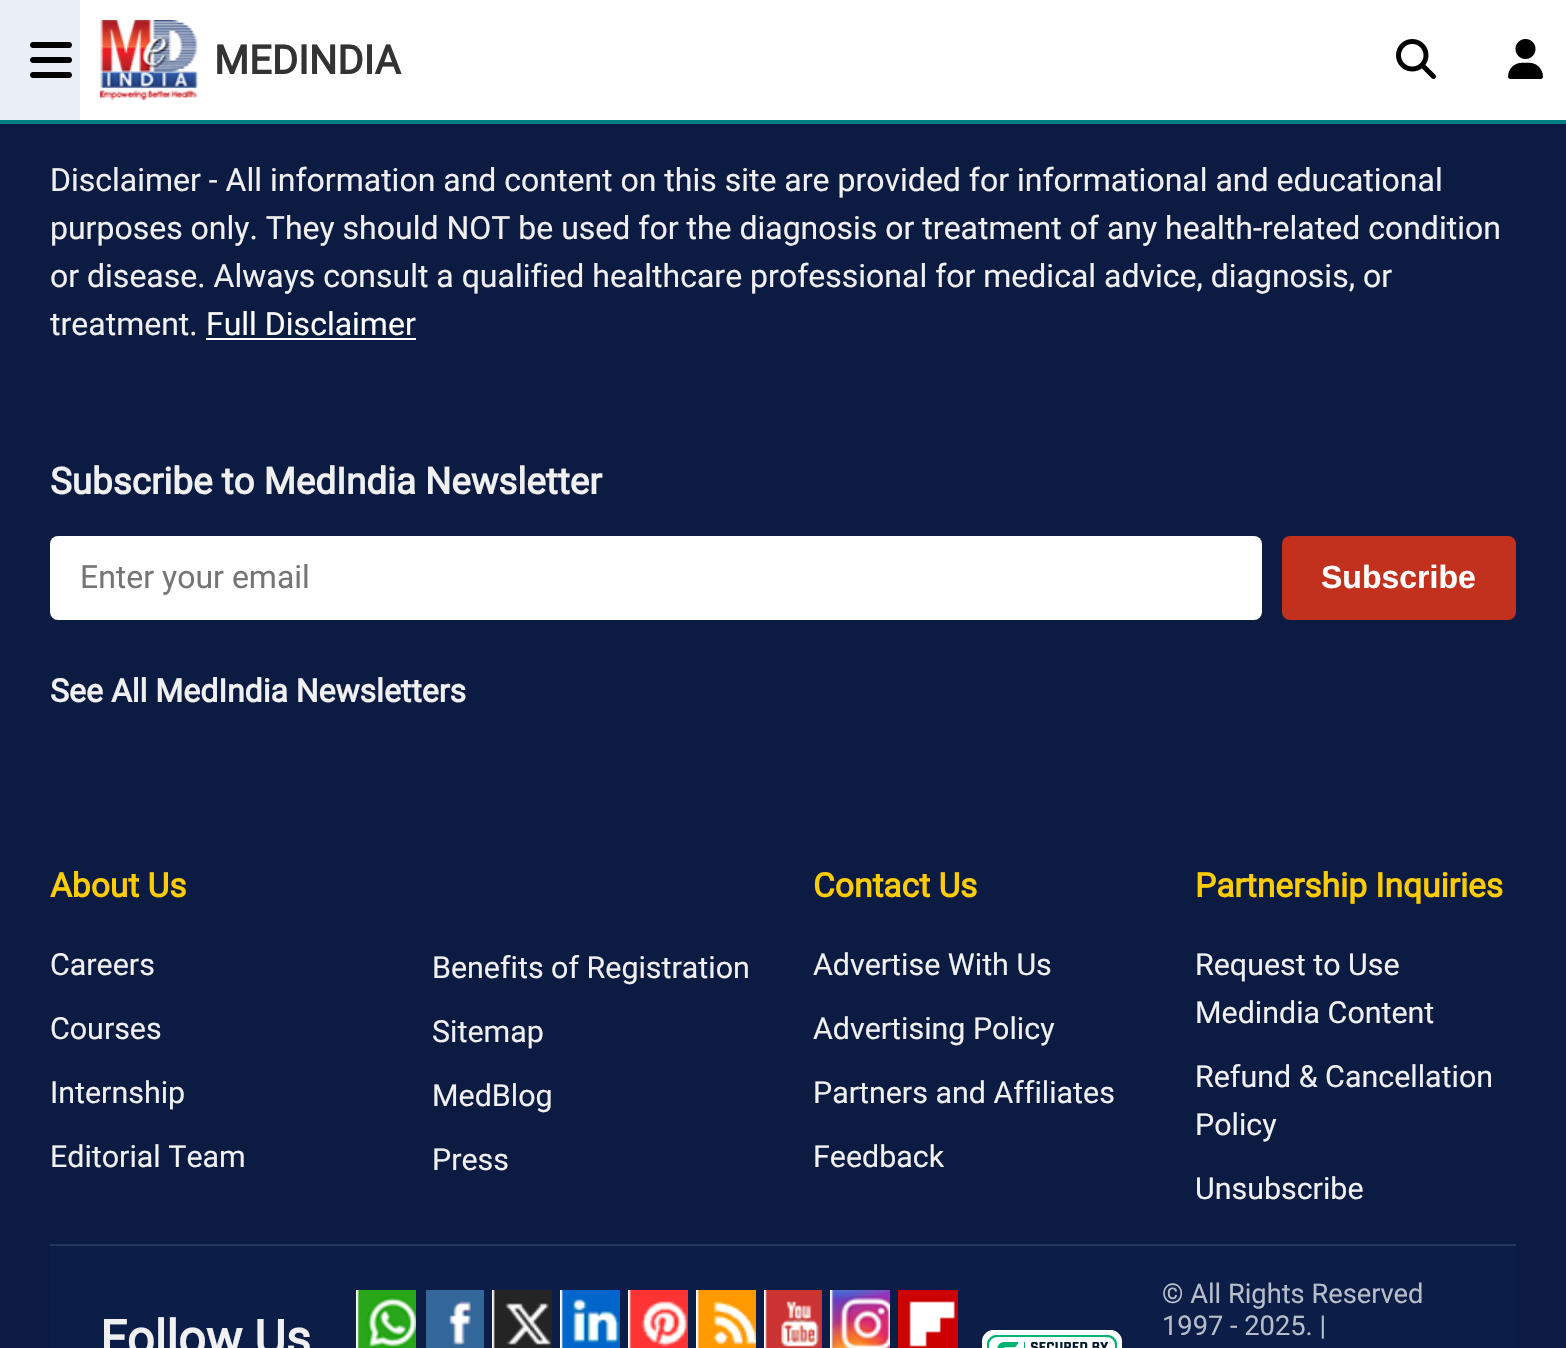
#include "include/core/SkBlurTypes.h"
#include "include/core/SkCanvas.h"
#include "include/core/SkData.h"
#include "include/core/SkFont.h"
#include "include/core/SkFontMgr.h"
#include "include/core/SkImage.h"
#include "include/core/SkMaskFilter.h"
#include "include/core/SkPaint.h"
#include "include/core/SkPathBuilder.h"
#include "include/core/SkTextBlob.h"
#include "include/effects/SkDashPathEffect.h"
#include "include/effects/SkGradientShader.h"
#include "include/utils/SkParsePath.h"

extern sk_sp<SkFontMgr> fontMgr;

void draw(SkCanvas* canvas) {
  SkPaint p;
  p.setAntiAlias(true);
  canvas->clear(SkColorSetRGB(11, 27, 66));
  p.setColor(SK_ColorWHITE);
  canvas->drawRect(SkRect::MakeLTRB(80, 0, 1566, 120), p);
  p.setColor(SkColorSetRGB(0, 128, 128));
  canvas->drawRect(SkRect::MakeLTRB(0, 120, 1566, 124), p);
  p.setColor(SkColorSetRGB(234, 239, 246));
  canvas->drawRect(SkRect::MakeLTRB(0, 0, 80, 120), p);
  canvas->drawImageRect(SkImages::DeferredFromEncodedData(SkData::MakeFromFileName("images/1.png")), SkRect::MakeLTRB(30, 42, 72, 78), SkSamplingOptions());
  canvas->drawImageRect(SkImages::DeferredFromEncodedData(SkData::MakeFromFileName("images/2.png")), SkRect::MakeLTRB(100, 20, 198, 100), SkSamplingOptions());
  canvas->drawImageRect(SkImages::DeferredFromEncodedData(SkData::MakeFromFileName("images/3.png")), SkRect::MakeLTRB(1396, 39, 1436, 79), SkSamplingOptions());
  canvas->drawImageRect(SkImages::DeferredFromEncodedData(SkData::MakeFromFileName("images/4.png")), SkRect::MakeLTRB(1508, 39, 1543, 79), SkSamplingOptions());
  p.setColor(SK_ColorWHITE);
  canvas->drawRect(SkRect::MakeLTRB(206, 338, 416, 340), p);
  canvas->drawRoundRect(SkRect::MakeLTRB(50, 536, 1262, 620), 8, 8, p);
  p.setColor(SkColorSetRGB(193, 49, 29));
  canvas->drawRoundRect(SkRect::MakeLTRB(1282, 536, 1516, 620), 8, 8, p);
  p.setColor(SkColorSetRGB(12, 30, 72));
  canvas->drawRect(SkRect::MakeLTRB(50, 1246, 1516, 1348), p);
  p.setColor(SkColorSetRGB(36, 53, 90));
  canvas->drawRect(SkRect::MakeLTRB(50, 1244, 1516, 1246), p);
  canvas->drawImageRect(SkImages::DeferredFromEncodedData(SkData::MakeFromFileName("images/5.png")), SkRect::MakeLTRB(356, 1290, 416, 1348), SkSamplingOptions());
  canvas->drawImageRect(SkImages::DeferredFromEncodedData(SkData::MakeFromFileName("images/6.png")), SkRect::MakeLTRB(426, 1290, 484, 1348), SkSamplingOptions());
  canvas->drawImageRect(SkImages::DeferredFromEncodedData(SkData::MakeFromFileName("images/7.png")), SkRect::MakeLTRB(492, 1290, 552, 1348), SkSamplingOptions());
  canvas->drawImageRect(SkImages::DeferredFromEncodedData(SkData::MakeFromFileName("images/8.png")), SkRect::MakeLTRB(560, 1290, 620, 1348), SkSamplingOptions());
  canvas->drawImageRect(SkImages::DeferredFromEncodedData(SkData::MakeFromFileName("images/9.png")), SkRect::MakeLTRB(628, 1290, 688, 1348), SkSamplingOptions());
  canvas->drawImageRect(SkImages::DeferredFromEncodedData(SkData::MakeFromFileName("images/10.png")), SkRect::MakeLTRB(696, 1290, 756, 1348), SkSamplingOptions());
  canvas->drawImageRect(SkImages::DeferredFromEncodedData(SkData::MakeFromFileName("images/11.png")), SkRect::MakeLTRB(764, 1290, 822, 1348), SkSamplingOptions());
  canvas->drawImageRect(SkImages::DeferredFromEncodedData(SkData::MakeFromFileName("images/12.png")), SkRect::MakeLTRB(830, 1290, 890, 1348), SkSamplingOptions());
  canvas->drawImageRect(SkImages::DeferredFromEncodedData(SkData::MakeFromFileName("images/13.png")), SkRect::MakeLTRB(898, 1290, 958, 1348), SkSamplingOptions());
  canvas->drawImageRect(SkImages::DeferredFromEncodedData(SkData::MakeFromFileName("images/14.png")), SkRect::MakeLTRB(982, 1330, 1122, 1348), SkSamplingOptions());
  SkFont font1(fontMgr->matchFamilyStyle("Roboto", SkFontStyle::Bold()), 40);
  font1.setSubpixel(true);
  p.setColor(SkColorSetRGB(51, 51, 51));
  canvas->drawString("MEDINDIA", 214, 74, font1, p);
  SkFont font2(fontMgr->matchFamilyStyle("Roboto", SkFontStyle::Normal()), 32);
  font2.setSubpixel(true);
  p.setColor(SkColorSetRGB(240, 240, 240));
  canvas->drawString("Disclaimer - All information and content on this site are provided for informational and educational", 50, 191, font2, p);
  canvas->drawString("purposes only. They should NOT be used for the diagnosis or treatment of any health-related condition", 50, 239, font2, p);
  canvas->drawString("or disease. Always consult a qualified healthcare professional for medical advice, diagnosis, or", 50, 287, font2, p);
  canvas->drawString("treatment.", 50, 335, font2, p);
  p.setColor(SK_ColorWHITE);
  canvas->drawString("Full Disclaimer", 206, 335, font2, p);
  SkFont font3(fontMgr->matchFamilyStyle("Roboto", SkFontStyle::Bold()), 36.75f);
  font3.setSubpixel(true);
  p.setColor(SkColorSetRGB(240, 240, 240));
  canvas->drawString("Subscribe to MedIndia Newsletter", 50, 494, font3, p);
  p.setColor(SkColorSetRGB(117, 117, 117));
  canvas->drawString("Enter your email", 80, 588, font2, p);
  SkFont font4(fontMgr->matchFamilyStyle("Liberation Sans", SkFontStyle::Bold()), 32);
  font4.setSubpixel(true);
  p.setColor(SK_ColorWHITE);
  canvas->drawString("Subscribe", 1321, 588, font4, p);
  SkFont font5(fontMgr->matchFamilyStyle("Roboto", SkFontStyle::Bold()), 32);
  font5.setSubpixel(true);
  p.setColor(SkColorSetRGB(240, 240, 240));
  canvas->drawString("See All MedIndia Newsletters", 50, 702, font5, p);
  SkFont font6(fontMgr->matchFamilyStyle("Roboto", SkFontStyle::Bold()), 33.5f);
  font6.setSubpixel(true);
  p.setColor(SkColorSetRGB(255, 204, 0));
  canvas->drawString("About Us", 50, 897, font6, p);
  SkFont font7(fontMgr->matchFamilyStyle("Roboto", SkFontStyle::Normal()), 30.4f);
  font7.setSubpixel(true);
  p.setColor(SkColorSetRGB(240, 240, 240));
  canvas->drawString("Careers", 50, 975, font7, p);
  canvas->drawString("Courses", 50, 1039, font7, p);
  canvas->drawString("Internship", 50, 1103, font7, p);
  canvas->drawString("Editorial Team", 50, 1167, font7, p);
  canvas->drawString("Benefits of Registration", 432, 978, font7, p);
  canvas->drawString("Sitemap", 432, 1042, font7, p);
  canvas->drawString("MedBlog", 432, 1106, font7, p);
  canvas->drawString("Press", 432, 1170, font7, p);
  p.setColor(SkColorSetRGB(255, 204, 0));
  canvas->drawString("Contact Us", 813, 897, font6, p);
  p.setColor(SkColorSetRGB(240, 240, 240));
  canvas->drawString("Advertise With Us", 813, 975, font7, p);
  canvas->drawString("Advertising Policy", 813, 1039, font7, p);
  canvas->drawString("Partners and Affiliates", 813, 1103, font7, p);
  canvas->drawString("Feedback", 813, 1167, font7, p);
  p.setColor(SkColorSetRGB(255, 204, 0));
  canvas->drawString("Partnership Inquiries", 1195, 897, font6, p);
  p.setColor(SkColorSetRGB(240, 240, 240));
  canvas->drawString("Request to Use", 1195, 975, font7, p);
  canvas->drawString("Medindia Content", 1195, 1023, font7, p);
  canvas->drawString("Refund & Cancellation", 1195, 1087, font7, p);
  canvas->drawString("Policy", 1195, 1135, font7, p);
  canvas->drawString("Unsubscribe", 1195, 1199, font7, p);
  SkFont font8(fontMgr->matchFamilyStyle("Roboto", SkFontStyle::Bold()), 48.5f);
  font8.setSubpixel(true);
  canvas->drawString("Follow Us", 100, 1355, font8, p);
  SkFont font9(fontMgr->matchFamilyStyle("Roboto", SkFontStyle::Normal()), 27.25f);
  font9.setSubpixel(true);
  p.setColor(SkColorSetRGB(182, 188, 200));
  canvas->drawString("© All Rights Reserved", 1162, 1303, font9, p);
  canvas->drawString("1997 - 2025. |", 1162, 1335, font9, p);
}
